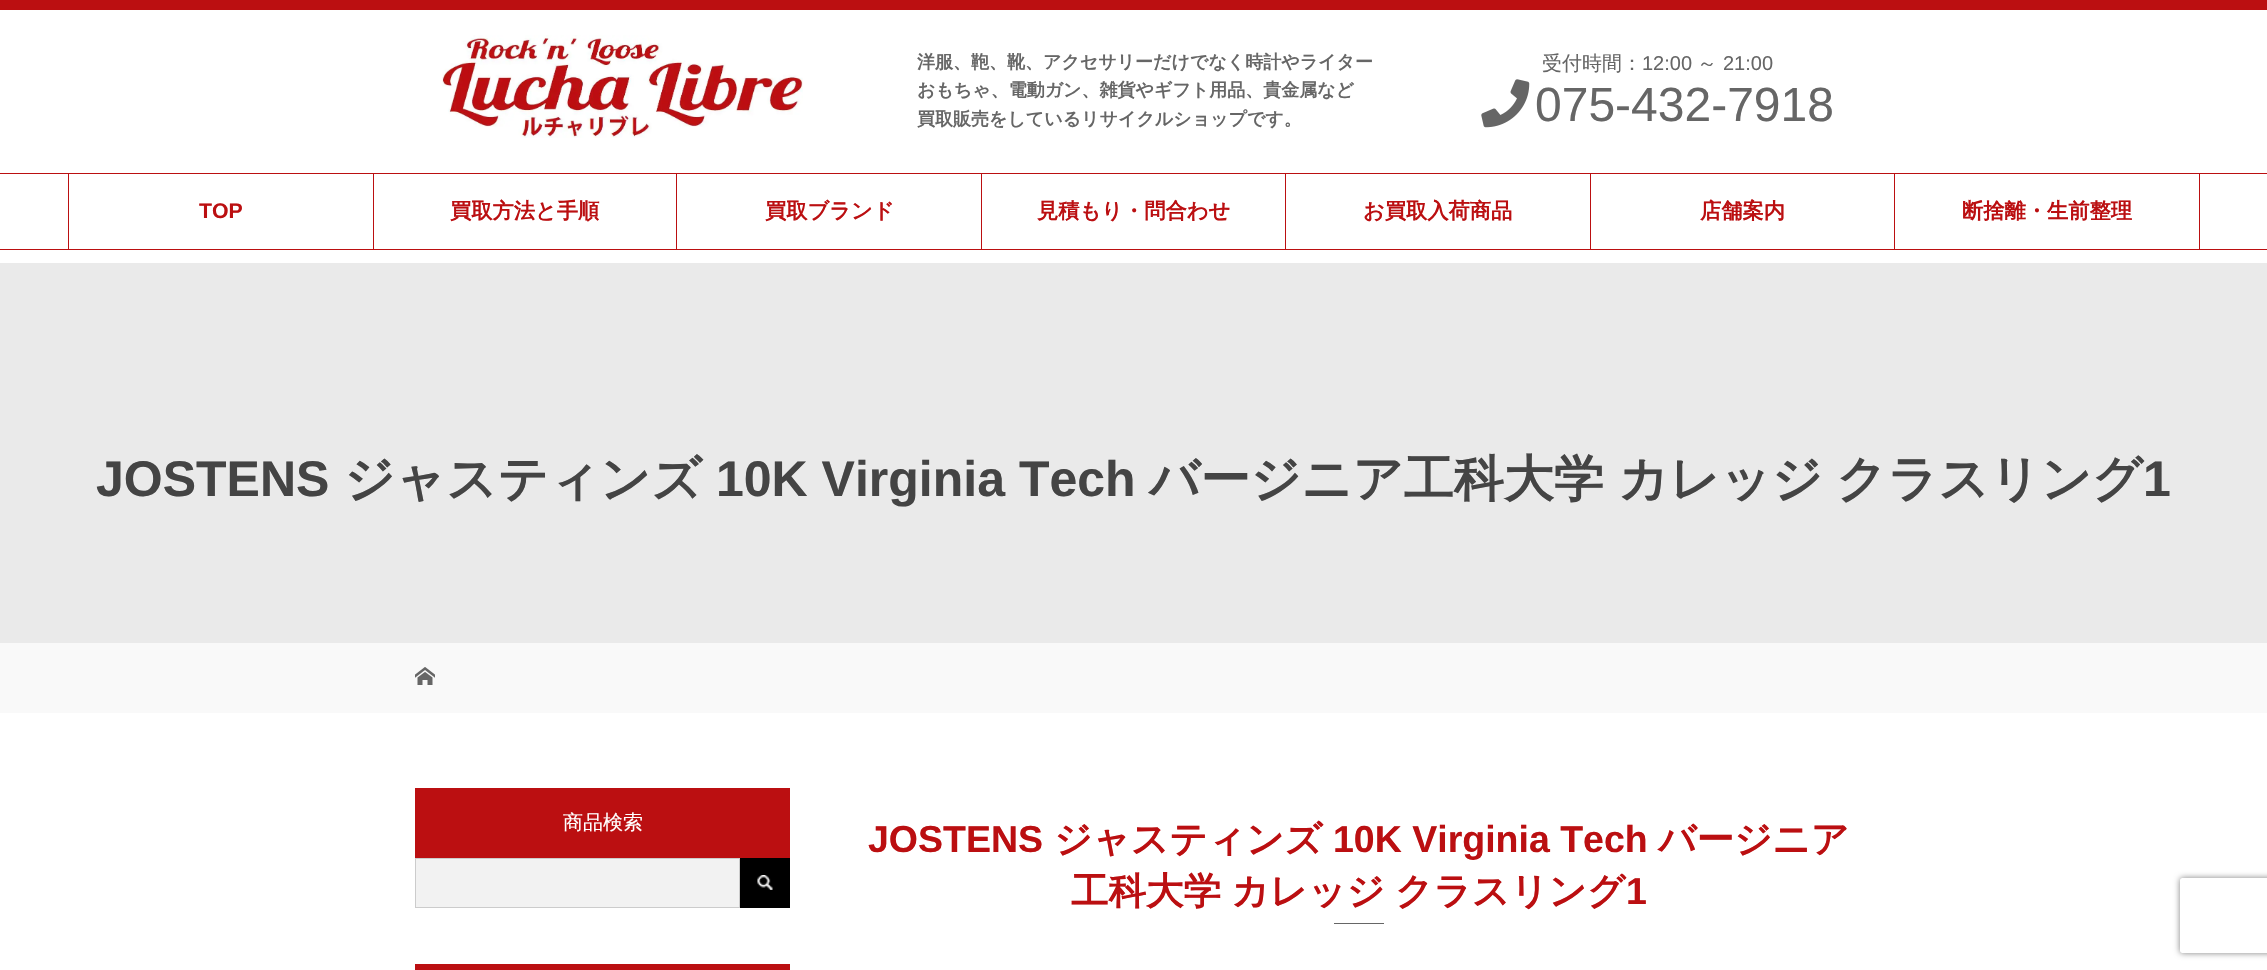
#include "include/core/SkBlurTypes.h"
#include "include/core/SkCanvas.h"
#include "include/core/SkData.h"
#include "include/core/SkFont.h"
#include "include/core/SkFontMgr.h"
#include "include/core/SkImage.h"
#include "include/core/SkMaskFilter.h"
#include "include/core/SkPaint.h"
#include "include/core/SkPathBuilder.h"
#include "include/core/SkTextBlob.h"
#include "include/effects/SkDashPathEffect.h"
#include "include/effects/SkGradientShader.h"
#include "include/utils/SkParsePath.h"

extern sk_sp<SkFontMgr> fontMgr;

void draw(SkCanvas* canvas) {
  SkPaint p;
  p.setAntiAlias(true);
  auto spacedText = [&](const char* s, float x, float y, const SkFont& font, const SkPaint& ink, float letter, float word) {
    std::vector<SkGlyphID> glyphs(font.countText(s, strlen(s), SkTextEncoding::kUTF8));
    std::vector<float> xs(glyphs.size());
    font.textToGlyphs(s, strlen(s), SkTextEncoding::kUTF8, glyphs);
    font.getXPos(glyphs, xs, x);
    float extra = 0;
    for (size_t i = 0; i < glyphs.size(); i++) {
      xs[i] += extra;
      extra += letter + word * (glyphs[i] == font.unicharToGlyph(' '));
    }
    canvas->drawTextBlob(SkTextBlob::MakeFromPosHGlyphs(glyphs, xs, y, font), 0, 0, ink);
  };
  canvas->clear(SK_ColorWHITE);
  p.setColor(SkColorSetRGB(187, 15, 17));
  canvas->drawRect(SkRect::MakeLTRB(0, 0, 2267, 10), p);
  canvas->drawImageRect(SkImages::DeferredFromEncodedData(SkData::MakeFromFileName("images/1.png")), SkRect::MakeLTRB(442, 35, 803, 138), SkSamplingOptions());
  canvas->drawImageRect(SkImages::DeferredFromEncodedData(SkData::MakeFromFileName("images/2.png")), SkRect::MakeLTRB(1481, 79, 1530, 128), SkSamplingOptions());
  canvas->drawRect(SkRect::MakeLTRB(0, 173, 2267, 174), p);
  canvas->drawRect(SkRect::MakeLTRB(0, 249, 2267, 250), p);
  canvas->drawRect(SkRect::MakeLTRB(68, 174, 69, 249), p);
  canvas->drawRect(SkRect::MakeLTRB(373, 174, 374, 249), p);
  canvas->drawRect(SkRect::MakeLTRB(676, 174, 677, 249), p);
  canvas->drawRect(SkRect::MakeLTRB(981, 174, 982, 249), p);
  canvas->drawRect(SkRect::MakeLTRB(1285, 174, 1286, 249), p);
  canvas->drawRect(SkRect::MakeLTRB(1590, 174, 1591, 249), p);
  canvas->drawRect(SkRect::MakeLTRB(2199, 174, 2200, 249), p);
  canvas->drawRect(SkRect::MakeLTRB(1894, 174, 1895, 249), p);
  p.setColor(SkColorSetRGB(234, 234, 234));
  canvas->drawRect(SkRect::MakeLTRB(0, 263, 2267, 643), p);
  p.setColor(SkColorSetRGB(249, 249, 249));
  canvas->drawRect(SkRect::MakeLTRB(0, 643, 2267, 713), p);
  canvas->drawImageRect(SkImages::DeferredFromEncodedData(SkData::MakeFromFileName("images/3.png")), SkRect::MakeLTRB(415, 667, 435, 685), SkSamplingOptions());
  p.setColor(SkColorSetRGB(187, 15, 17));
  canvas->drawRect(SkRect::MakeLTRB(415, 788, 790, 858), p);
  p.setColor(SkColorSetRGB(242, 242, 242));
  canvas->drawRect(SkRect::MakeLTRB(415.5f, 858.5f, 739.5f, 907.5f), p);
  p.setStyle(SkPaint::kStroke_Style);
  p.setStrokeWidth(1);
  p.setColor(SkColorSetRGB(204, 204, 204));
  canvas->drawRect(SkRect::MakeLTRB(415.5f, 858.5f, 739.5f, 907.5f), p);
  p.setStyle(SkPaint::kFill_Style);
  p.setColor(SK_ColorBLACK);
  canvas->drawRect(SkRect::MakeLTRB(740, 858, 790, 908), p);
  canvas->drawImageRect(SkImages::DeferredFromEncodedData(SkData::MakeFromFileName("images/4.png")), SkRect::MakeLTRB(757, 875, 773, 890), SkSamplingOptions());
  p.setColor(SkColorSetRGB(187, 15, 17));
  canvas->drawRect(SkRect::MakeLTRB(415, 964, 790, 970), p);
  p.setColor(SkColorSetRGB(102, 102, 102));
  canvas->drawRect(SkRect::MakeLTRB(1334, 923, 1384, 924), p);
  canvas->save();
  canvas->clipPath(SkPathBuilder(SkPathFillType::kEvenOdd).moveTo(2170, 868).lineTo(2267, 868).lineTo(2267, 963).lineTo(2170, 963).close().moveTo(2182.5f, 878).lineTo(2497.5f, 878).cubicTo(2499, 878, 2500, 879, 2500, 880.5f).lineTo(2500, 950.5f).cubicTo(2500, 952, 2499, 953, 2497.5f, 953).lineTo(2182.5f, 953).cubicTo(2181, 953, 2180, 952, 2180, 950.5f).lineTo(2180, 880.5f).cubicTo(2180, 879, 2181, 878, 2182.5f, 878).close().detach(), true);
  p.setColor(SkColorSetRGB(128, 128, 128));
  p.setMaskFilter(SkMaskFilter::MakeBlur(kNormal_SkBlurStyle, 3));
  canvas->drawRoundRect(SkRect::MakeLTRB(2180, 878, 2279, 953), 2.5f, 2.5f, p);
  p.setMaskFilter(nullptr);
  canvas->restore();
  SkFont font1(fontMgr->matchFamilyStyle("WenQuanYi Zen Hei", SkFontStyle::Bold()), 18);
  font1.setSubpixel(true);
  p.setColor(SkColorSetRGB(102, 102, 102));
  canvas->drawString("洋服、鞄、靴、アクセサリーだけでなく時計やライター", 917, 68, font1, p);
  canvas->drawString("おもちゃ、電動ガン、雑貨やギフト用品、貴金属など", 917, 96, font1, p);
  canvas->drawString("買取販売をしているリサイクルショップです。", 917, 125, font1, p);
  SkFont font2(fontMgr->matchFamilyStyle("WenQuanYi Zen Hei", SkFontStyle(500, SkFontStyle::kNormal_Width, SkFontStyle::kUpright_Slant)), 20);
  font2.setSubpixel(true);
  canvas->drawString("受付時間：", 1542, 70, font2, p);
  SkFont font3(fontMgr->matchFamilyStyle("Liberation Sans", SkFontStyle::Normal()), 20);
  font3.setSubpixel(true);
  canvas->drawString("12:00", 1642, 70, font3, p);
  canvas->drawString("～", 1697, 70, font2, p);
  canvas->drawString("21:00", 1723, 70, font3, p);
  SkFont font4(fontMgr->matchFamilyStyle("Liberation Sans", SkFontStyle::Normal()), 48);
  font4.setSubpixel(true);
  canvas->drawString("075-432-7918", 1535, 121, font4, p);
  SkFont font5(fontMgr->matchFamilyStyle("Liberation Sans", SkFontStyle::Bold()), 21.25f);
  font5.setSubpixel(true);
  p.setColor(SkColorSetRGB(187, 15, 17));
  canvas->drawString("TOP", 199, 218, font5, p);
  SkFont font6(fontMgr->matchFamilyStyle("WenQuanYi Zen Hei", SkFontStyle::Bold()), 21.25f);
  font6.setSubpixel(true);
  canvas->drawString("買取方法と手順", 450, 218, font6, p);
  canvas->drawString("買取ブランド", 765, 218, font6, p);
  canvas->drawString("見積もり・問合わせ", 1037, 218, font6, p);
  canvas->drawString("お買取入荷商品", 1363, 218, font6, p);
  canvas->drawString("店舗案内", 1700, 218, font6, p);
  canvas->drawString("断捨離・生前整理", 1962, 218, font6, p);
  SkFont font7(fontMgr->matchFamilyStyle("Liberation Sans", SkFontStyle::Bold()), 50);
  font7.setSubpixel(true);
  p.setColor(SkColorSetRGB(68, 68, 68));
  canvas->drawString("JOSTENS", 96, 496, font7, p);
  SkFont font8(fontMgr->matchFamilyStyle("WenQuanYi Zen Hei", SkFontStyle::Bold()), 50);
  font8.setSubpixel(true);
  canvas->drawString("ジャスティンズ", 344, 496, font8, p);
  canvas->drawString("10K Virginia Tech", 716, 496, font7, p);
  canvas->drawString("バージニア工科大学", 1149, 496, font8, p);
  canvas->drawString("カレッジ", 1618, 496, font8, p);
  canvas->drawString("クラスリング", 1836, 496, font8, p);
  canvas->drawString("1", 2143, 496, font7, p);
  p.setColor(SK_ColorWHITE);
  canvas->drawString("商品検索", 563, 829, font2, p);
  SkFont font9(fontMgr->matchFamilyStyle("Liberation Sans", SkFontStyle::Bold()), 37.5f);
  font9.setSubpixel(true);
  p.setColor(SkColorSetRGB(187, 15, 17));
  canvas->drawString("JOSTENS", 868, 852, font9, p);
  SkFont font10(fontMgr->matchFamilyStyle("WenQuanYi Zen Hei", SkFontStyle::Bold()), 37.5f);
  font10.setSubpixel(true);
  canvas->drawString("ジャスティンズ", 1054, 852, font10, p);
  canvas->drawString("10K Virginia Tech", 1333, 852, font9, p);
  canvas->drawString("バージニア", 1658, 852, font10, p);
  spacedText("工科大学 カレッジ クラスリング", 1071, 904, font10, p, 0, -1);
  canvas->drawString("1", 1626, 904, font9, p);
}
